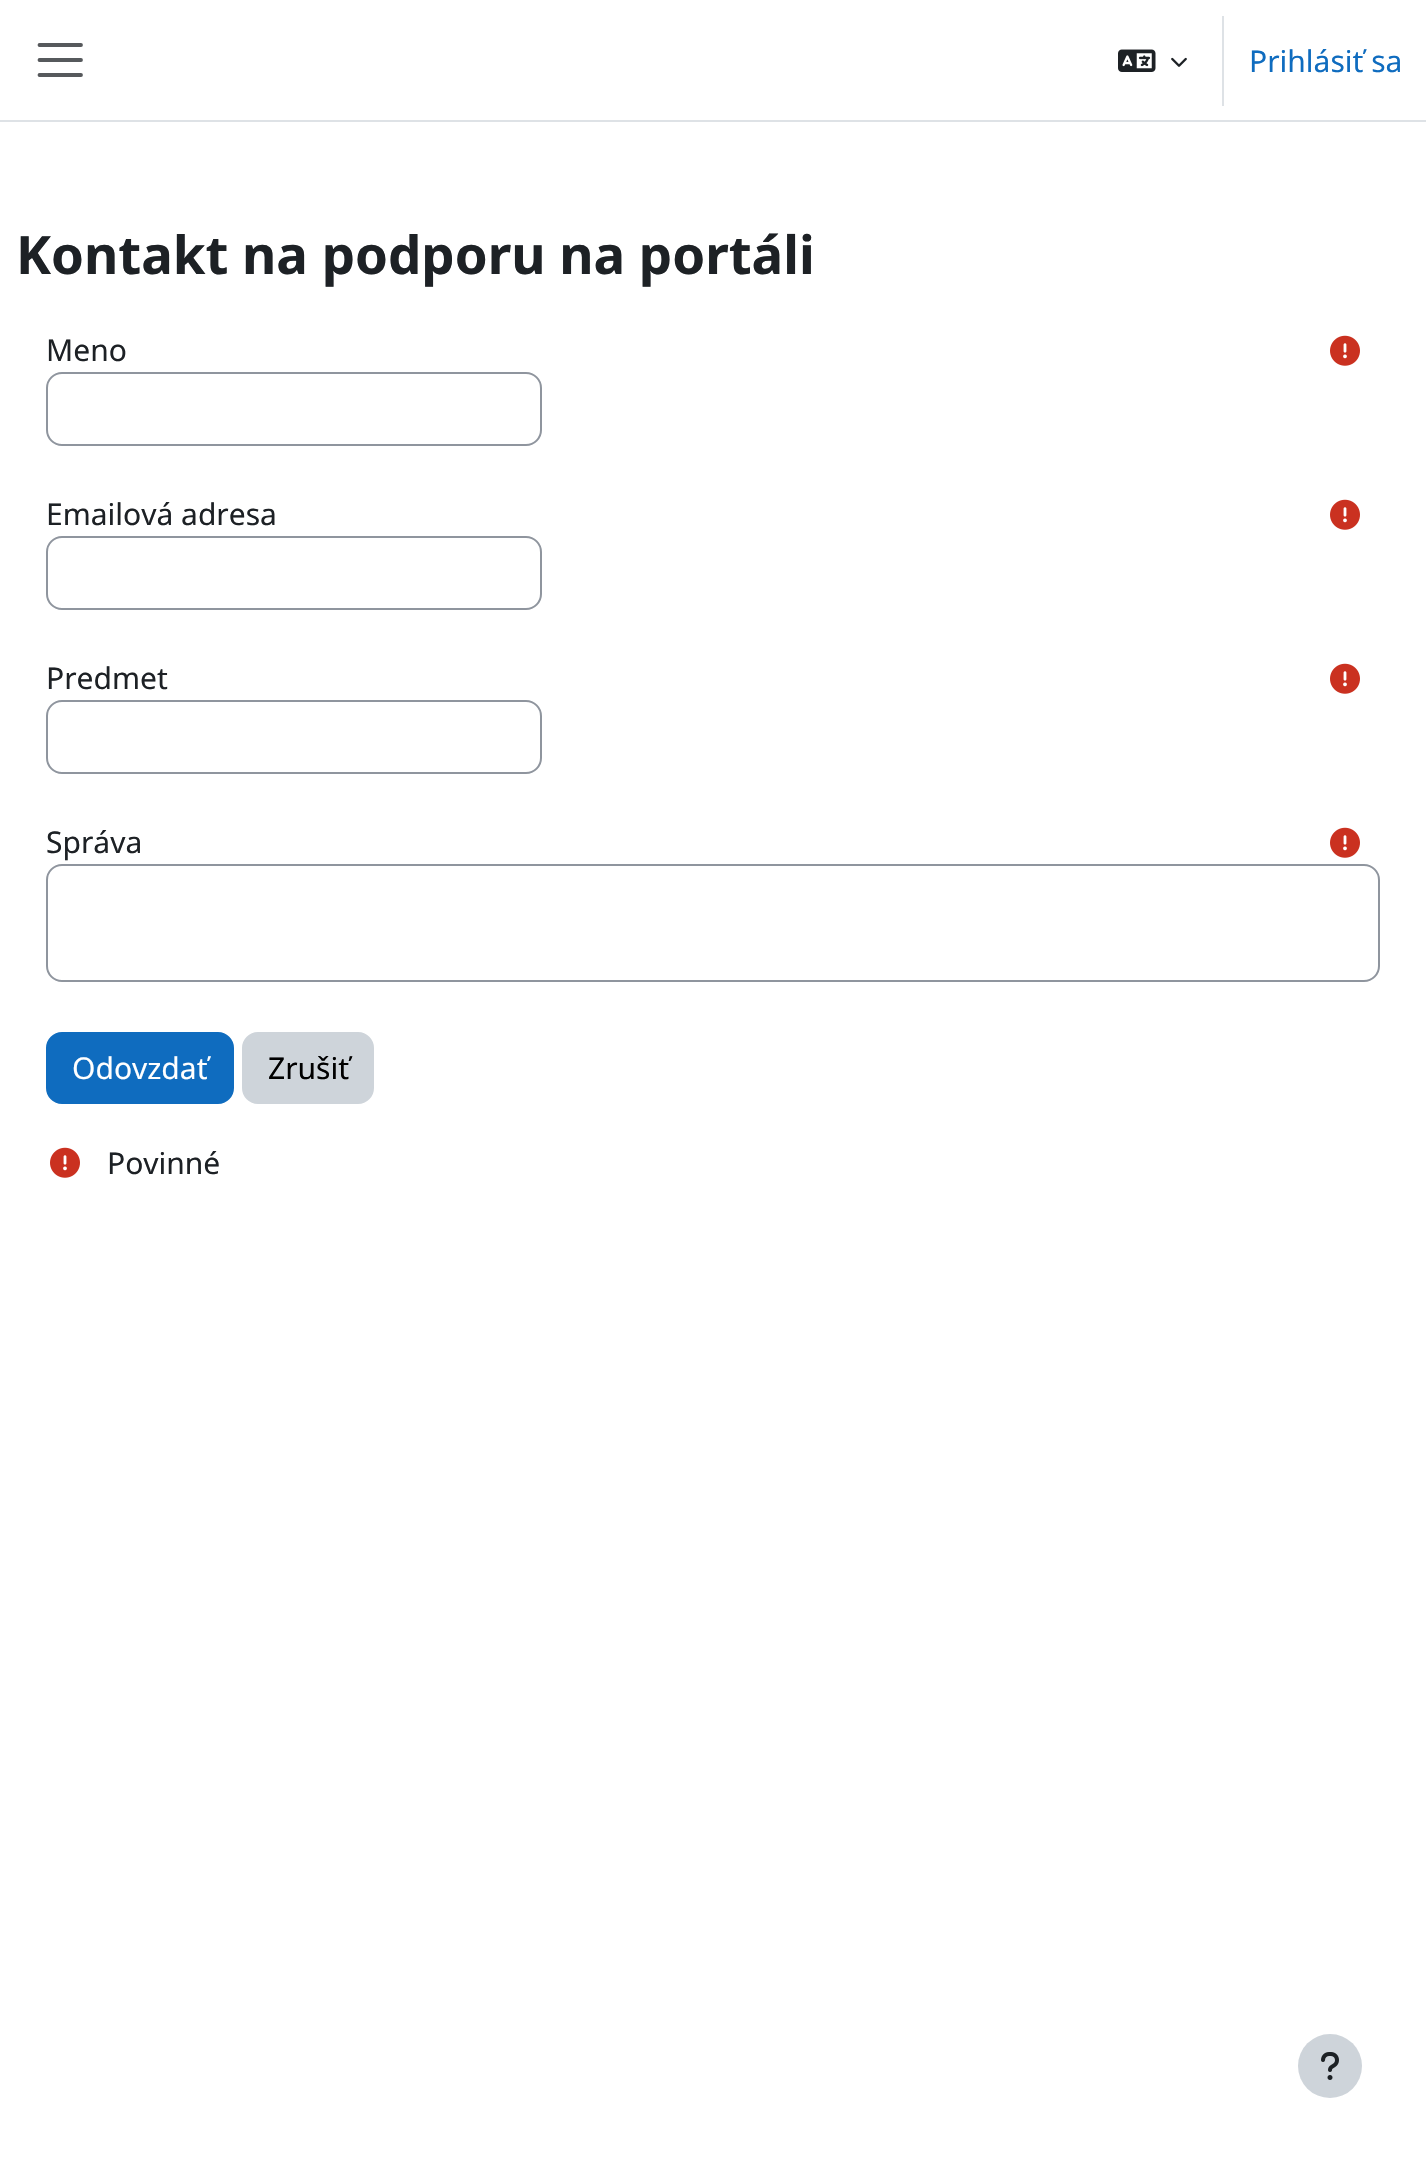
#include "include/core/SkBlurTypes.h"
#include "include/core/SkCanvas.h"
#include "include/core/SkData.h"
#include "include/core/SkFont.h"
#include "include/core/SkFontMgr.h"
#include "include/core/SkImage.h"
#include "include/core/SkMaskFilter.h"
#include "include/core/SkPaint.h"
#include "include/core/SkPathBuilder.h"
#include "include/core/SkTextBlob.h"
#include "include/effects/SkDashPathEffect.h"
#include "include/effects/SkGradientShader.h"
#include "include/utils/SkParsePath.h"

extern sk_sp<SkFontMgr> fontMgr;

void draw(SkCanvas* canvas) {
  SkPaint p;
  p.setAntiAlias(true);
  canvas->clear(SK_ColorWHITE);
  p.setColor(SkColorSetRGB(222, 226, 230));
  canvas->drawRect(SkRect::MakeLTRB(0, 120, 1426, 122), p);
  p.setStyle(SkPaint::kStroke_Style);
  p.setStrokeWidth(3.8f);
  p.setStrokeCap(SkPaint::kRound_Cap);
  p.setColor(SkColorSetRGB(86, 89, 92));
  canvas->drawPath(SkPathBuilder().moveTo(39.5f, 45).lineTo(81, 45).moveTo(39.5f, 60).lineTo(81, 60).moveTo(39.5f, 75).lineTo(81, 75).detach(), p);
  canvas->drawImageRect(SkImages::DeferredFromEncodedData(SkData::MakeFromFileName("images/1.png")), SkRect::MakeLTRB(1118, 49, 1156, 72), SkSamplingOptions());
  canvas->drawImageRect(SkImages::DeferredFromEncodedData(SkData::MakeFromFileName("images/2.png")), SkRect::MakeLTRB(1171, 57, 1187, 67), SkSamplingOptions());
  p.setStyle(SkPaint::kFill_Style);
  p.setColor(SkColorSetRGB(222, 226, 230));
  canvas->drawRect(SkRect::MakeLTRB(1222, 16, 1224, 106), p);
  canvas->drawImageRect(SkImages::DeferredFromEncodedData(SkData::MakeFromFileName("images/3.png")), SkRect::MakeLTRB(1330, 335, 1360, 366), SkSamplingOptions());
  p.setStyle(SkPaint::kStroke_Style);
  p.setStrokeWidth(2);
  p.setStrokeCap(SkPaint::kButt_Cap);
  p.setColor(SkColorSetRGB(143, 149, 158));
  canvas->drawRoundRect(SkRect::MakeLTRB(47, 373, 541, 445), 15, 15, p);
  canvas->drawImageRect(SkImages::DeferredFromEncodedData(SkData::MakeFromFileName("images/3.png")), SkRect::MakeLTRB(1330, 499, 1360, 530), SkSamplingOptions());
  canvas->drawRoundRect(SkRect::MakeLTRB(47, 537, 541, 609), 15, 15, p);
  canvas->drawImageRect(SkImages::DeferredFromEncodedData(SkData::MakeFromFileName("images/3.png")), SkRect::MakeLTRB(1330, 663, 1360, 694), SkSamplingOptions());
  canvas->drawRoundRect(SkRect::MakeLTRB(47, 701, 541, 773), 15, 15, p);
  canvas->drawImageRect(SkImages::DeferredFromEncodedData(SkData::MakeFromFileName("images/3.png")), SkRect::MakeLTRB(1330, 827, 1360, 858), SkSamplingOptions());
  canvas->drawRoundRect(SkRect::MakeLTRB(47, 865, 1379, 981), 15, 15, p);
  p.setStyle(SkPaint::kFill_Style);
  p.setColor(SkColorSetRGB(15, 108, 191));
  canvas->drawRoundRect(SkRect::MakeLTRB(47, 1033, 233, 1103), 15, 15, p);
  p.setStyle(SkPaint::kStroke_Style);
  canvas->drawRoundRect(SkRect::MakeLTRB(47, 1033, 233, 1103), 15, 15, p);
  p.setStyle(SkPaint::kFill_Style);
  p.setColor(SkColorSetRGB(206, 212, 218));
  canvas->drawRoundRect(SkRect::MakeLTRB(243, 1033, 373, 1103), 15, 15, p);
  p.setStyle(SkPaint::kStroke_Style);
  canvas->drawRoundRect(SkRect::MakeLTRB(243, 1033, 373, 1103), 15, 15, p);
  canvas->drawImageRect(SkImages::DeferredFromEncodedData(SkData::MakeFromFileName("images/3.png")), SkRect::MakeLTRB(50, 1147, 80, 1178), SkSamplingOptions());
  p.setStyle(SkPaint::kFill_Style);
  canvas->drawCircle(1330, 2066, 32, p);
  canvas->drawImageRect(SkImages::DeferredFromEncodedData(SkData::MakeFromFileName("images/4.png")), SkRect::MakeLTRB(1321, 2052, 1339, 2080), SkSamplingOptions());
  SkFont font1(fontMgr->matchFamilyStyle("Noto Sans", SkFontStyle::Normal()), 30);
  font1.setSubpixel(true);
  p.setColor(SkColorSetRGB(15, 108, 191));
  canvas->drawString("Prihlásiť sa", 1249, 72, font1, p);
  SkFont font2(fontMgr->matchFamilyStyle("Noto Sans", SkFontStyle::Bold()), 52.75f);
  font2.setSubpixel(true);
  p.setColor(SkColorSetRGB(29, 33, 37));
  canvas->drawString("Kontakt na podporu na portáli", 16, 274, font2, p);
  canvas->drawString("Meno", 46, 361, font1, p);
  canvas->drawString("Emailová adresa", 46, 525, font1, p);
  canvas->drawString("Predmet", 46, 689, font1, p);
  canvas->drawString("Správa", 46, 853, font1, p);
  p.setColor(SK_ColorWHITE);
  canvas->drawString("Odovzdať", 72, 1079, font1, p);
  p.setColor(SK_ColorBLACK);
  canvas->drawString("Zrušiť", 268, 1079, font1, p);
  p.setColor(SkColorSetRGB(29, 33, 37));
  canvas->drawString("Povinné", 107, 1174, font1, p);
}
